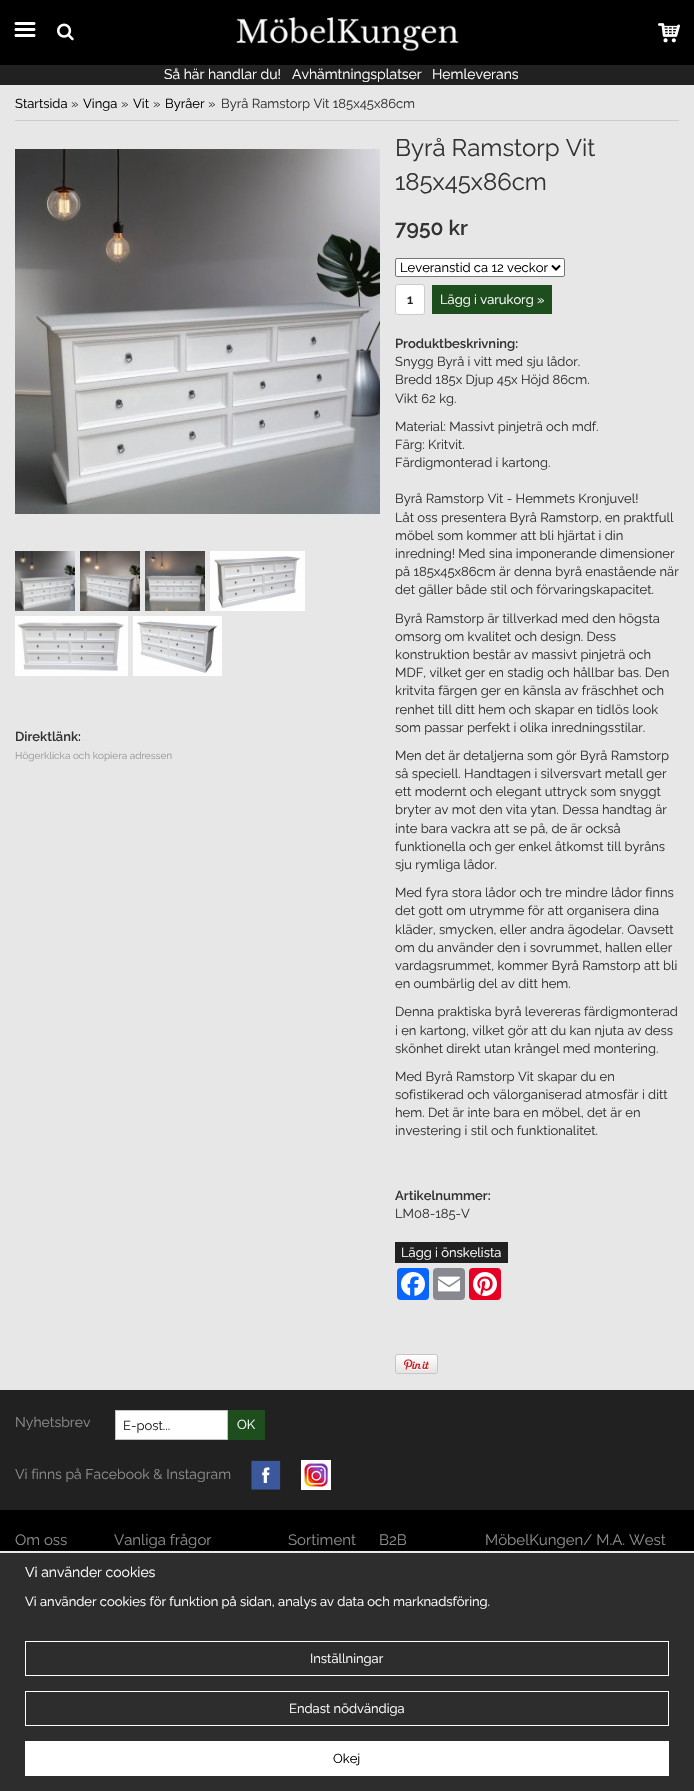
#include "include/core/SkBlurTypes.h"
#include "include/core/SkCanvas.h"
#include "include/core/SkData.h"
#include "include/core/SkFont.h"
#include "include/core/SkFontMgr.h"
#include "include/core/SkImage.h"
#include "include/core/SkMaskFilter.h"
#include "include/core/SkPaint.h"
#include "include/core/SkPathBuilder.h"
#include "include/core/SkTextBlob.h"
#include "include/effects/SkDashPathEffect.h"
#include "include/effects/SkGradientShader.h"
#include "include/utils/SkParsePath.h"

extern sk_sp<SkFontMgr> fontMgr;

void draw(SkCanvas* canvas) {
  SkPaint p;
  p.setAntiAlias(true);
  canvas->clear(SkColorSetRGB(33, 33, 33));
  p.setColor(SK_ColorBLACK);
  canvas->drawRect(SkRect::MakeLTRB(0, 0, 694, 65), p);
  canvas->drawImageRect(SkImages::DeferredFromEncodedData(SkData::MakeFromFileName("images/1.png")), SkRect::MakeLTRB(14, 22, 36, 37), SkSamplingOptions());
  canvas->drawImageRect(SkImages::DeferredFromEncodedData(SkData::MakeFromFileName("images/2.png")), SkRect::MakeLTRB(57, 23, 74, 41), SkSamplingOptions());
  canvas->drawImageRect(SkImages::DeferredFromEncodedData(SkData::MakeFromFileName("images/3.png")), SkRect::MakeLTRB(236, 17, 459, 52), SkSamplingOptions());
  canvas->drawImageRect(SkImages::DeferredFromEncodedData(SkData::MakeFromFileName("images/4.png")), SkRect::MakeLTRB(658, 23, 680, 43), SkSamplingOptions());
  p.setColor(SkColorSetRGB(231, 231, 231));
  canvas->drawRect(SkRect::MakeLTRB(0, 85, 694, 1390), p);
  p.setColor(SkColorSetRGB(204, 204, 204));
  canvas->drawRect(SkRect::MakeLTRB(15, 120, 679, 121), p);
  canvas->drawImageRect(SkImages::DeferredFromEncodedData(SkData::MakeFromFileName("images/5.png")), SkRect::MakeLTRB(15, 149, 380, 514), SkSamplingOptions());
  canvas->drawImageRect(SkImages::DeferredFromEncodedData(SkData::MakeFromFileName("images/6.png")), SkRect::MakeLTRB(15, 551, 75, 611), SkSamplingOptions());
  canvas->drawImageRect(SkImages::DeferredFromEncodedData(SkData::MakeFromFileName("images/7.png")), SkRect::MakeLTRB(80, 551, 140, 611), SkSamplingOptions());
  canvas->drawImageRect(SkImages::DeferredFromEncodedData(SkData::MakeFromFileName("images/8.png")), SkRect::MakeLTRB(145, 551, 205, 611), SkSamplingOptions());
  canvas->drawImageRect(SkImages::DeferredFromEncodedData(SkData::MakeFromFileName("images/9.png")), SkRect::MakeLTRB(210, 551, 305, 611), SkSamplingOptions());
  canvas->drawImageRect(SkImages::DeferredFromEncodedData(SkData::MakeFromFileName("images/10.png")), SkRect::MakeLTRB(15, 616, 128, 676), SkSamplingOptions());
  canvas->drawImageRect(SkImages::DeferredFromEncodedData(SkData::MakeFromFileName("images/11.png")), SkRect::MakeLTRB(133, 616, 222, 676), SkSamplingOptions());
  p.setColor(SK_ColorWHITE);
  canvas->drawRoundRect(SkRect::MakeLTRB(395.5f, 258.5f, 564.5f, 276.5f), 1.5f, 1.5f, p);
  p.setStyle(SkPaint::kStroke_Style);
  p.setStrokeWidth(1);
  p.setColor(SkColorSetRGB(118, 118, 118));
  canvas->drawRoundRect(SkRect::MakeLTRB(395.5f, 258.5f, 564.5f, 276.5f), 1.5f, 1.5f, p);
  p.setStrokeWidth(2);
  p.setColor(SK_ColorBLACK);
  canvas->drawPath(SkPathBuilder().moveTo(552, 265.5f).lineTo(556, 269.5f).lineTo(560, 265.5f).detach(), p);
  p.setStyle(SkPaint::kFill_Style);
  p.setColor(SK_ColorWHITE);
  canvas->drawRoundRect(SkRect::MakeLTRB(395.5f, 284.5f, 424.5f, 314.5f), 2.5f, 2.5f, p);
  p.setStyle(SkPaint::kStroke_Style);
  p.setStrokeWidth(1);
  p.setColor(SkColorSetRGB(204, 204, 204));
  canvas->drawRoundRect(SkRect::MakeLTRB(395.5f, 284.5f, 424.5f, 314.5f), 2.5f, 2.5f, p);
  p.setStyle(SkPaint::kFill_Style);
  p.setColor(SkColorSetRGB(30, 78, 29));
  canvas->drawRect(SkRect::MakeLTRB(432, 285, 552, 314), p);
  p.setColor(SkColorSetRGB(33, 33, 33));
  canvas->drawRect(SkRect::MakeLTRB(395, 1242, 508, 1263), p);
  p.setColor(SkColorSetRGB(8, 102, 255));
  canvas->drawRoundRect(SkRect::MakeLTRB(397, 1268, 429, 1300), 4, 4, p);
  canvas->drawImageRect(SkImages::DeferredFromEncodedData(SkData::MakeFromFileName("images/12.png")), SkRect::MakeLTRB(401, 1272, 425, 1296), SkSamplingOptions());
  p.setColor(SkColorSetRGB(136, 137, 144));
  canvas->drawRoundRect(SkRect::MakeLTRB(433, 1268, 465, 1300), 4, 4, p);
  canvas->drawImageRect(SkImages::DeferredFromEncodedData(SkData::MakeFromFileName("images/13.png")), SkRect::MakeLTRB(438, 1276, 460, 1292), SkSamplingOptions());
  p.setColor(SkColorSetRGB(230, 0, 35));
  canvas->drawRoundRect(SkRect::MakeLTRB(469, 1268, 501, 1300), 4, 4, p);
  canvas->drawImageRect(SkImages::DeferredFromEncodedData(SkData::MakeFromFileName("images/14.png")), SkRect::MakeLTRB(473, 1272, 497, 1296), SkSamplingOptions());
  canvas->drawImageRect(SkImages::DeferredFromEncodedData(SkData::MakeFromFileName("images/15.png")), SkRect::MakeLTRB(395, 1354, 438, 1374), SkSamplingOptions());
  p.setColor(SK_ColorWHITE);
  canvas->drawRect(SkRect::MakeLTRB(115.5f, 1410.5f, 227.5f, 1439.5f), p);
  p.setStyle(SkPaint::kStroke_Style);
  p.setColor(SkColorSetRGB(194, 194, 194));
  canvas->drawRect(SkRect::MakeLTRB(115.5f, 1410.5f, 227.5f, 1439.5f), p);
  p.setStyle(SkPaint::kFill_Style);
  p.setColor(SkColorSetRGB(30, 78, 29));
  canvas->drawRect(SkRect::MakeLTRB(228, 1410, 265, 1440), p);
  canvas->drawImageRect(SkImages::DeferredFromEncodedData(SkData::MakeFromFileName("images/16.png")), SkRect::MakeLTRB(251, 1460, 281, 1490), SkSamplingOptions());
  canvas->drawImageRect(SkImages::DeferredFromEncodedData(SkData::MakeFromFileName("images/17.png")), SkRect::MakeLTRB(301, 1460, 331, 1490), SkSamplingOptions());
  p.setColor(SK_ColorBLACK);
  canvas->drawRect(SkRect::MakeLTRB(0, 1510, 694, 1551), p);
  p.setColor(SkColorSetRGB(45, 45, 45));
  canvas->drawRect(SkRect::MakeLTRB(0, 1553, 694, 1791), p);
  p.setColor(SkColorSetRGB(233, 233, 233));
  canvas->drawRect(SkRect::MakeLTRB(0, 1551, 694, 1553), p);
  p.setStyle(SkPaint::kStroke_Style);
  p.setColor(SK_ColorWHITE);
  canvas->drawRect(SkRect::MakeLTRB(25.5f, 1641.5f, 668.5f, 1675.5f), p);
  canvas->drawRect(SkRect::MakeLTRB(25.5f, 1691.5f, 668.5f, 1725.5f), p);
  p.setStyle(SkPaint::kFill_Style);
  canvas->drawRect(SkRect::MakeLTRB(25, 1741, 669, 1776), p);
  SkFont font1(fontMgr->matchFamilyStyle("Raleway", SkFontStyle::Normal()), 14);
  font1.setSubpixel(true);
  canvas->drawString("Så här handlar du!", 164, 79, font1, p);
  canvas->drawString("Avhämtningsplatser", 292, 79, font1, p);
  canvas->drawString("Hemleverans", 432, 79, font1, p);
  SkFont font2(fontMgr->matchFamilyStyle("Raleway", SkFontStyle::Normal()), 13);
  font2.setSubpixel(true);
  p.setColor(SK_ColorBLACK);
  canvas->drawString("Startsida", 15, 108, font2, p);
  p.setColor(SkColorSetRGB(51, 51, 51));
  canvas->drawString("»", 71, 108, font2, p);
  p.setColor(SK_ColorBLACK);
  canvas->drawString("Vinga", 83, 108, font2, p);
  p.setColor(SkColorSetRGB(51, 51, 51));
  canvas->drawString("»", 121, 108, font2, p);
  p.setColor(SK_ColorBLACK);
  canvas->drawString("Vit", 133, 108, font2, p);
  p.setColor(SkColorSetRGB(51, 51, 51));
  canvas->drawString("»", 153, 108, font2, p);
  p.setColor(SK_ColorBLACK);
  canvas->drawString("Byråer", 165, 108, font2, p);
  p.setColor(SkColorSetRGB(51, 51, 51));
  canvas->drawString("»", 208, 108, font2, p);
  canvas->drawString("Byrå Ramstorp Vit 185x45x86cm", 221, 108, font2, p);
  SkFont font3(fontMgr->matchFamilyStyle("Raleway", SkFontStyle(600, SkFontStyle::kNormal_Width, SkFontStyle::kUpright_Slant)), 13);
  font3.setSubpixel(true);
  canvas->drawString("Direktlänk:", 15, 741, font3, p);
  SkFont font4(fontMgr->matchFamilyStyle("Raleway", SkFontStyle::Normal()), 10);
  font4.setSubpixel(true);
  p.setColor(SkColorSetRGB(153, 153, 153));
  canvas->drawString("Högerklicka och kopiera adressen", 15, 759, font4, p);
  SkFont font5(fontMgr->matchFamilyStyle("Raleway", SkFontStyle::Normal()), 24);
  font5.setSubpixel(true);
  p.setColor(SkColorSetRGB(51, 51, 51));
  canvas->drawString("Byrå Ramstorp Vit", 395, 156, font5, p);
  canvas->drawString("185x45x86cm", 395, 190, font5, p);
  SkFont font6(fontMgr->matchFamilyStyle("Raleway", SkFontStyle(600, SkFontStyle::kNormal_Width, SkFontStyle::kUpright_Slant)), 21);
  font6.setSubpixel(true);
  canvas->drawString("7950 kr", 395, 235, font6, p);
  p.setColor(SK_ColorBLACK);
  canvas->drawString("Leveranstid ca 12 veckor", 400, 272, font2, p);
  p.setColor(SkColorSetRGB(34, 34, 34));
  canvas->drawString("1", 407, 304, font3, p);
  p.setColor(SK_ColorWHITE);
  canvas->drawString("Lägg i varukorg »", 440, 304, font2, p);
  p.setColor(SkColorSetRGB(51, 51, 51));
  canvas->drawString("Produktbeskrivning:", 395, 348, font3, p);
  canvas->drawString("Snygg Byrå i vitt med sju lådor.", 395, 366, font2, p);
  canvas->drawString("Bredd 185x Djup 45x Höjd 86cm.", 395, 384, font2, p);
  canvas->drawString("Vikt 62 kg.", 395, 403, font2, p);
  canvas->drawString("Material: Massivt pinjeträ och mdf.", 395, 431, font2, p);
  canvas->drawString("Färg: Kritvit.", 395, 449, font2, p);
  canvas->drawString("Färdigmonterad i kartong.", 395, 467, font2, p);
  canvas->drawString("Byrå Ramstorp Vit - Hemmets Kronjuvel!", 395, 503, font2, p);
  canvas->drawString("Låt oss presentera Byrå Ramstorp, en praktfull", 395, 522, font2, p);
  canvas->drawString("möbel som kommer att bli hjärtat i din", 395, 540, font2, p);
  canvas->drawString("inredning! Med sina imponerande dimensioner", 395, 558, font2, p);
  canvas->drawString("på 185x45x86cm är denna byrå enastående när", 395, 576, font2, p);
  canvas->drawString("det gäller både stil och förvaringskapacitet.", 395, 594, font2, p);
  canvas->drawString("Byrå Ramstorp är tillverkad med den högsta", 395, 623, font2, p);
  canvas->drawString("omsorg om kvalitet och design. Dess", 395, 641, font2, p);
  canvas->drawString("konstruktion består av massivt pinjeträ och", 395, 659, font2, p);
  canvas->drawString("MDF, vilket ger en stadig och hållbar bas. Den", 395, 677, font2, p);
  canvas->drawString("kritvita färgen ger en känsla av fräschhet och", 395, 695, font2, p);
  canvas->drawString("renhet till ditt hem och skapar en tidlös look", 395, 714, font2, p);
  canvas->drawString("som passar perfekt i olika inredningsstilar.", 395, 732, font2, p);
  canvas->drawString("Men det är detaljerna som gör Byrå Ramstorp", 395, 760, font2, p);
  canvas->drawString("så speciell. Handtagen i silversvart metall ger", 395, 778, font2, p);
  canvas->drawString("ett modernt och elegant uttryck som snyggt", 395, 796, font2, p);
  canvas->drawString("bryter av mot den vita ytan. Dessa handtag är", 395, 814, font2, p);
  canvas->drawString("inte bara vackra att se på, de är också", 395, 833, font2, p);
  canvas->drawString("funktionella och ger enkel åtkomst till byråns", 395, 851, font2, p);
  canvas->drawString("sju rymliga lådor.", 395, 869, font2, p);
  canvas->drawString("Med fyra stora lådor och tre mindre lådor finns", 395, 897, font2, p);
  canvas->drawString("det gott om utrymme för att organisera dina", 395, 915, font2, p);
  canvas->drawString("kläder, smycken, eller andra ägodelar. Oavsett", 395, 934, font2, p);
  canvas->drawString("om du använder den i sovrummet, hallen eller", 395, 952, font2, p);
  canvas->drawString("vardagsrummet, kommer Byrå Ramstorp att bli", 395, 970, font2, p);
  canvas->drawString("en oumbärlig del av ditt hem.", 395, 988, font2, p);
  canvas->drawString("Denna praktiska byrå levereras färdigmonterad", 395, 1016, font2, p);
  canvas->drawString("i en kartong, vilket gör att du kan njuta av dess", 395, 1035, font2, p);
  canvas->drawString("skönhet direkt utan krångel med montering.", 395, 1053, font2, p);
  canvas->drawString("Med Byrå Ramstorp Vit skapar du en", 395, 1081, font2, p);
  canvas->drawString("sofistikerad och välorganiserad atmosfär i ditt", 395, 1099, font2, p);
  canvas->drawString("hem. Det är inte bara en möbel, det är en", 395, 1117, font2, p);
  canvas->drawString("investering i stil och funktionalitet.", 395, 1135, font2, p);
  canvas->drawString("Artikelnummer:", 395, 1200, font3, p);
  canvas->drawString("LM08-185-V", 395, 1218, font2, p);
  p.setColor(SK_ColorWHITE);
  canvas->drawString("Lägg i önskelista", 401, 1257, font2, p);
  p.setColor(SkColorSetRGB(141, 140, 139));
  canvas->drawString("Nyhetsbrev", 15, 1427, font1, p);
  p.setColor(SkColorSetRGB(34, 34, 34));
  canvas->drawString("E-post...", 123, 1430, font2, p);
  p.setColor(SK_ColorWHITE);
  canvas->drawString("OK", 237, 1429, font2, p);
  p.setColor(SkColorSetRGB(141, 140, 139));
  canvas->drawString("Vi finns på Facebook & Instagram", 15, 1479, font1, p);
  SkFont font7(fontMgr->matchFamilyStyle("Raleway", SkFontStyle::Normal()), 15);
  font7.setSubpixel(true);
  canvas->drawString("Om oss", 15, 1545, font7, p);
  canvas->drawString("Vanliga frågor", 114, 1545, font7, p);
  canvas->drawString("Sortiment", 288, 1545, font7, p);
  canvas->drawString("B2B", 379, 1545, font7, p);
  canvas->drawString("MöbelKungen/ M.A. West", 485, 1545, font7, p);
  p.setColor(SK_ColorWHITE);
  canvas->drawString("Vi använder cookies", 25, 1577, font1, p);
  canvas->drawString("Vi använder cookies för funktion på sidan, analys av data och marknadsföring.", 25, 1606, font2, p);
  canvas->drawString("Inställningar", 310, 1663, font2, p);
  canvas->drawString("Endast nödvändiga", 289, 1713, font2, p);
  p.setColor(SK_ColorBLACK);
  canvas->drawString("Okej", 333, 1763, font2, p);
}
